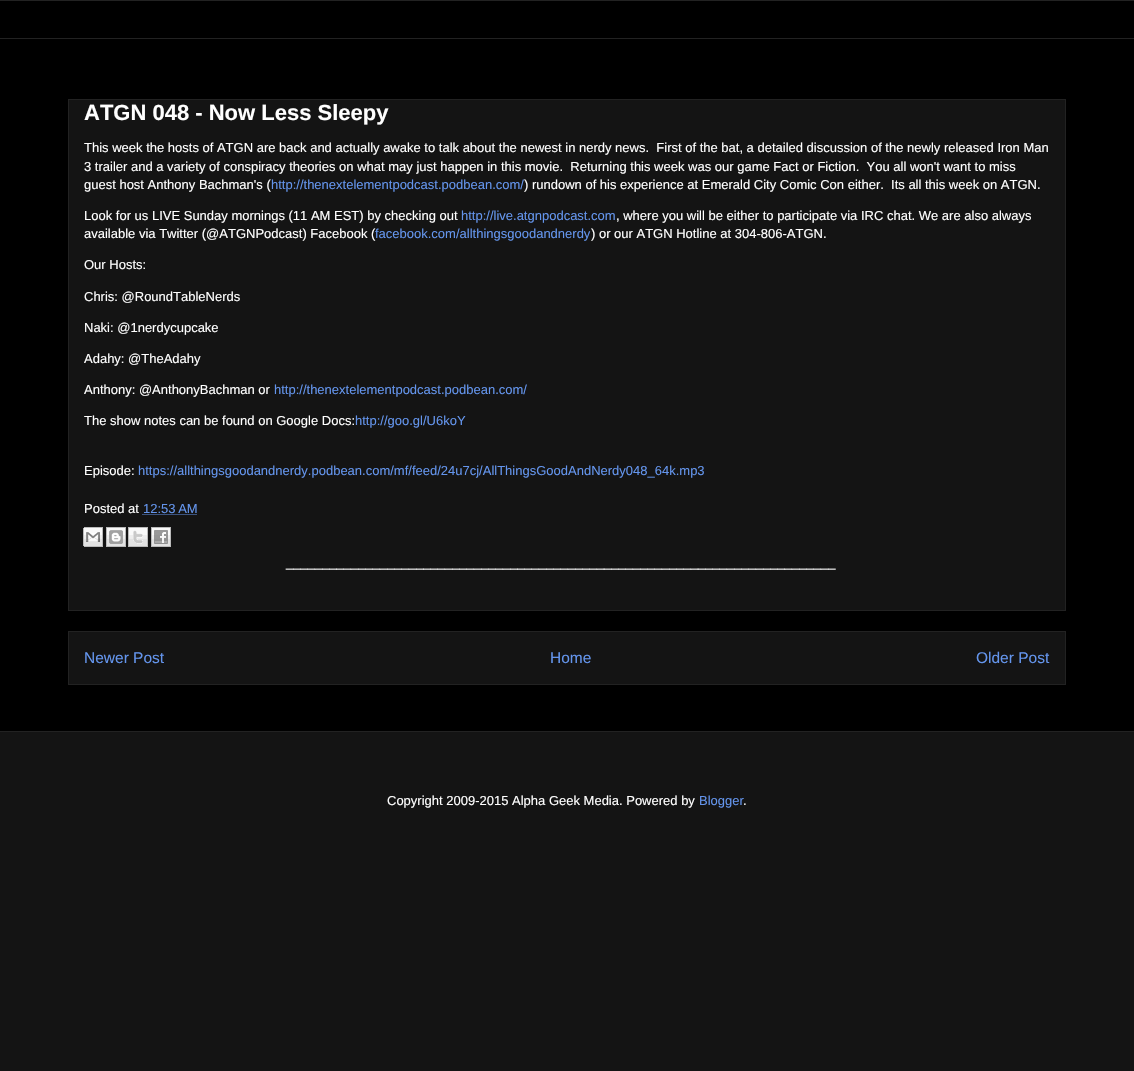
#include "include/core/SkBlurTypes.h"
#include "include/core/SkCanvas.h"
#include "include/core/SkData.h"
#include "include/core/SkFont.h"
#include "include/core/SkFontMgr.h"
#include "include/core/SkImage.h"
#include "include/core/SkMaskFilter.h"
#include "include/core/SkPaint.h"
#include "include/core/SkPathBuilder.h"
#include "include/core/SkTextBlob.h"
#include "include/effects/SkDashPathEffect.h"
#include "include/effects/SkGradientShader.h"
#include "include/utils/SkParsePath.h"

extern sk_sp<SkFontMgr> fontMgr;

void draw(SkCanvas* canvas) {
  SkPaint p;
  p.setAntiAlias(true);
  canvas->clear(SkColorSetRGB(20, 20, 20));
  p.setColor(SK_ColorBLACK);
  canvas->drawRect(SkRect::MakeLTRB(0, 1, 1134, 731), p);
  p.setColor(SkColorSetRGB(34, 34, 34));
  canvas->drawRect(SkRect::MakeLTRB(0, 0, 1134, 1), p);
  canvas->drawRect(SkRect::MakeLTRB(0, 38, 1134, 39), p);
  p.setColor(SkColorSetRGB(20, 20, 20));
  canvas->drawRect(SkRect::MakeLTRB(68.5f, 99.5f, 1065.5f, 610.5f), p);
  p.setStyle(SkPaint::kStroke_Style);
  p.setStrokeWidth(1);
  p.setColor(SkColorSetRGB(34, 34, 34));
  canvas->drawRect(SkRect::MakeLTRB(68.5f, 99.5f, 1065.5f, 610.5f), p);
  p.setColor(SkColorSetRGB(100, 149, 237));
  p.setPathEffect(SkDashPathEffect::Make({{1, 1}}, 0));
  canvas->drawPath(SkPathBuilder().moveTo(142.5f, 514.5f).lineTo(197, 514.5f).detach(), p);
  p.setPathEffect(nullptr);
  canvas->drawImageRect(SkImages::DeferredFromEncodedData(SkData::MakeFromFileName("images/1.png")), SkRect::MakeLTRB(83, 527, 103, 547), SkSamplingOptions());
  canvas->drawImageRect(SkImages::DeferredFromEncodedData(SkData::MakeFromFileName("images/2.png")), SkRect::MakeLTRB(106, 527, 126, 547), SkSamplingOptions());
  canvas->drawImageRect(SkImages::DeferredFromEncodedData(SkData::MakeFromFileName("images/3.png")), SkRect::MakeLTRB(128, 527, 148, 547), SkSamplingOptions());
  canvas->drawImageRect(SkImages::DeferredFromEncodedData(SkData::MakeFromFileName("images/4.png")), SkRect::MakeLTRB(151, 527, 171, 547), SkSamplingOptions());
  p.setStyle(SkPaint::kFill_Style);
  p.setColor(SkColorSetRGB(20, 20, 20));
  canvas->drawRect(SkRect::MakeLTRB(68.5f, 631.5f, 1065.5f, 684.5f), p);
  p.setStyle(SkPaint::kStroke_Style);
  p.setColor(SkColorSetRGB(34, 34, 34));
  canvas->drawRect(SkRect::MakeLTRB(68.5f, 631.5f, 1065.5f, 684.5f), p);
  p.setStyle(SkPaint::kFill_Style);
  canvas->drawRect(SkRect::MakeLTRB(0, 731, 1134, 732), p);
  SkFont font1(fontMgr->matchFamilyStyle("Liberation Sans", SkFontStyle::Bold()), 22);
  font1.setSubpixel(true);
  p.setColor(SK_ColorWHITE);
  canvas->drawString("ATGN 048 - Now Less Sleepy", 84, 120, font1, p);
  SkFont font2(fontMgr->matchFamilyStyle("Liberation Sans", SkFontStyle::Normal()), 13);
  font2.setSubpixel(true);
  canvas->drawString("This week the hosts of ATGN are back and actually awake to talk about the newest in nerdy news.  First of the bat, a detailed discussion of the newly released Iron Man", 84, 152, font2, p);
  canvas->drawString("3 trailer and a variety of conspiracy theories on what may just happen in this movie.  Returning this week was our game Fact or Fiction.  You all won't want to miss", 84, 171, font2, p);
  canvas->drawString("guest host Anthony Bachman's (", 84, 189, font2, p);
  p.setColor(SkColorSetRGB(100, 149, 237));
  canvas->drawString("http://thenextelementpodcast.podbean.com/", 271, 189, font2, p);
  p.setColor(SK_ColorWHITE);
  canvas->drawString(") rundown of his experience at Emerald City Comic Con either.  Its all this week on ATGN.", 524, 189, font2, p);
  canvas->drawString("Look for us LIVE Sunday mornings (11 AM EST) by checking out", 84, 220, font2, p);
  p.setColor(SkColorSetRGB(100, 149, 237));
  canvas->drawString("http://live.atgnpodcast.com", 461, 220, font2, p);
  p.setColor(SK_ColorWHITE);
  canvas->drawString(", where you will be either to participate via IRC chat. We are also always", 616, 220, font2, p);
  canvas->drawString("available via Twitter (@ATGNPodcast) Facebook (", 84, 238, font2, p);
  p.setColor(SkColorSetRGB(100, 149, 237));
  canvas->drawString("facebook.com/allthingsgoodandnerdy", 375, 238, font2, p);
  p.setColor(SK_ColorWHITE);
  canvas->drawString(") or our ATGN Hotline at 304-806-ATGN.", 591, 238, font2, p);
  canvas->drawString("Our Hosts:", 84, 269, font2, p);
  canvas->drawString("Chris: @RoundTableNerds", 84, 301, font2, p);
  canvas->drawString("Naki: @1nerdycupcake", 84, 332, font2, p);
  canvas->drawString("Adahy: @TheAdahy", 84, 363, font2, p);
  canvas->drawString("Anthony: @AnthonyBachman or", 84, 394, font2, p);
  p.setColor(SkColorSetRGB(100, 149, 237));
  canvas->drawString("http://thenextelementpodcast.podbean.com/", 274, 394, font2, p);
  p.setColor(SK_ColorWHITE);
  canvas->drawString("The show notes can be found on Google Docs:", 84, 425, font2, p);
  p.setColor(SkColorSetRGB(100, 149, 237));
  canvas->drawString("http://goo.gl/U6koY", 355, 425, font2, p);
  p.setColor(SK_ColorWHITE);
  canvas->drawString("Episode:", 84, 475, font2, p);
  p.setColor(SkColorSetRGB(100, 149, 237));
  canvas->drawString("https://allthingsgoodandnerdy.podbean.com/mf/feed/24u7cj/AllThingsGoodAndNerdy048_64k.mp3", 138, 475, font2, p);
  p.setColor(SK_ColorWHITE);
  canvas->drawString("Posted at", 84, 513, font2, p);
  p.setColor(SkColorSetRGB(100, 149, 237));
  canvas->drawString("12:53 AM", 143, 513, font2, p);
  p.setColor(SK_ColorWHITE);
  canvas->drawString("____________________________________________________________________________", 286, 567, font2, p);
  SkFont font3(fontMgr->matchFamilyStyle("Liberation Sans", SkFontStyle::Normal()), 15.5f);
  font3.setSubpixel(true);
  p.setColor(SkColorSetRGB(100, 149, 237));
  canvas->drawString("Newer Post", 84, 663, font3, p);
  canvas->drawString("Home", 550, 663, font3, p);
  canvas->drawString("Older Post", 976, 663, font3, p);
  p.setColor(SK_ColorWHITE);
  canvas->drawString("Copyright 2009-2015 Alpha Geek Media. Powered by", 387, 805, font2, p);
  p.setColor(SkColorSetRGB(100, 149, 237));
  canvas->drawString("Blogger", 699, 805, font2, p);
  p.setColor(SK_ColorWHITE);
  canvas->drawString(".", 743, 805, font2, p);
}
